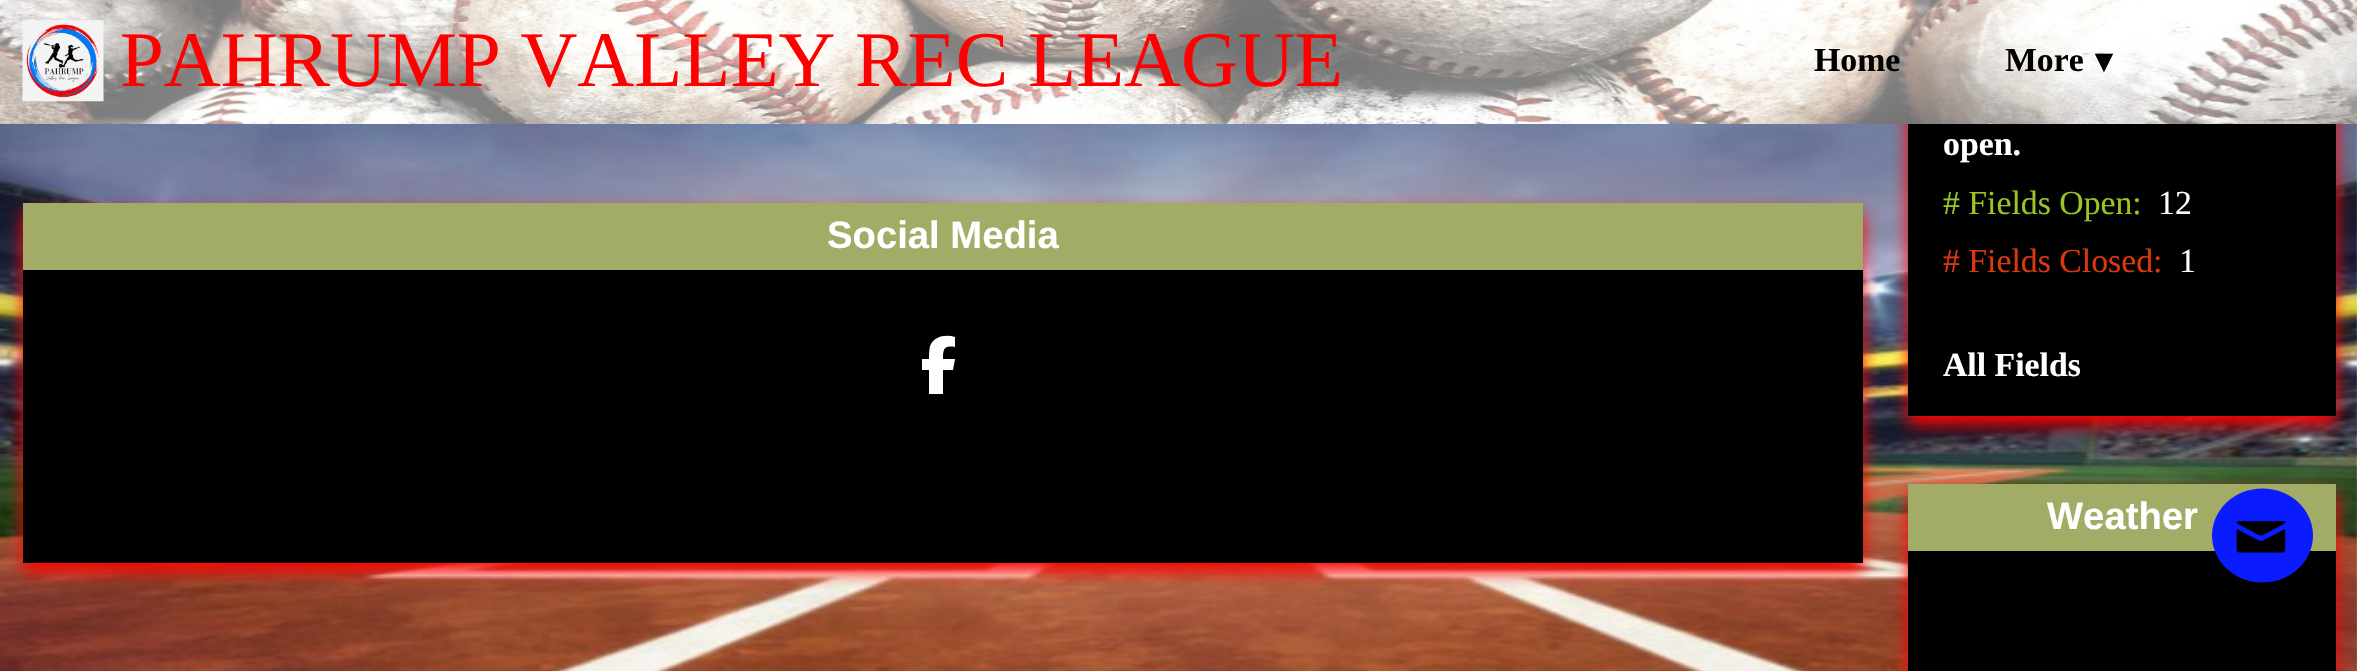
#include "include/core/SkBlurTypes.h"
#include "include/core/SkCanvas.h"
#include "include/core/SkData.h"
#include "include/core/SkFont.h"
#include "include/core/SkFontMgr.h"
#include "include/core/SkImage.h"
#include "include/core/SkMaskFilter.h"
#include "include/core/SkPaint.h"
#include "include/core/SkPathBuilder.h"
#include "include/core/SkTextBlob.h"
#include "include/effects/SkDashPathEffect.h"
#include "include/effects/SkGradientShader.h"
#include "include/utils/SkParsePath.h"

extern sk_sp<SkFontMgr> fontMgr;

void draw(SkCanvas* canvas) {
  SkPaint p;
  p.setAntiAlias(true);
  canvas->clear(SK_ColorWHITE);
  canvas->drawImageRect(SkImages::DeferredFromEncodedData(SkData::MakeFromFileName("images/3.png")), SkRect::MakeLTRB(0, 124, 2357, 671), SkSamplingOptions());
  p.setColor(SkColorSetRGB(255, 0, 0));
  p.setMaskFilter(SkMaskFilter::MakeBlur(kNormal_SkBlurStyle, 8));
  canvas->drawRect(SkRect::MakeLTRB(1908, -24, 2336, 425), p);
  p.setMaskFilter(nullptr);
  canvas->drawImageRect(SkImages::DeferredFromEncodedData(SkData::MakeFromFileName("images/1.png")), SkRect::MakeLTRB(0, 0, 2357, 124), SkSamplingOptions());
  canvas->drawImageRect(SkImages::DeferredFromEncodedData(SkData::MakeFromFileName("images/2.png")), SkRect::MakeLTRB(22, 20, 104, 102), SkSamplingOptions());
  p.setMaskFilter(SkMaskFilter::MakeBlur(kNormal_SkBlurStyle, 8));
  canvas->drawRect(SkRect::MakeLTRB(23, 212, 1863, 572), p);
  p.setMaskFilter(nullptr);
  p.setColor(SkColorSetRGB(162, 172, 103));
  canvas->drawRect(SkRect::MakeLTRB(23, 203, 1863, 270), p);
  p.setColor(SK_ColorBLACK);
  canvas->drawRect(SkRect::MakeLTRB(23, 270, 1863, 563), p);
  p.setColor(SK_ColorWHITE);
  canvas->drawPath(SkPathBuilder().moveTo(929, 370).lineTo(929, 394).lineTo(929, 370).lineTo(929, 394).lineTo(943, 394).lineTo(943, 370).lineTo(953, 370).lineTo(955, 359).lineTo(943, 359).cubicTo(943, 349, 944, 345, 955, 347).lineTo(955, 337).cubicTo(946, 334, 934, 336, 930, 346).cubicTo(929, 350, 929, 355, 929, 359).lineTo(922, 359).lineTo(922, 370).close().detach(), p);
  p.setColor(SK_ColorBLACK);
  canvas->drawRect(SkRect::MakeLTRB(1908, 124, 2336, 416), p);
  p.setColor(SkColorSetRGB(255, 0, 0));
  p.setMaskFilter(SkMaskFilter::MakeBlur(kNormal_SkBlurStyle, 8));
  canvas->drawRect(SkRect::MakeLTRB(1908, 493, 2336, 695), p);
  p.setMaskFilter(nullptr);
  p.setColor(SkColorSetRGB(162, 172, 103));
  canvas->drawRect(SkRect::MakeLTRB(1908, 484, 2336, 551), p);
  p.setColor(SK_ColorBLACK);
  canvas->drawRect(SkRect::MakeLTRB(1908, 551, 2336, 671), p);
  p.setColor(SkColorSetRGB(10, 27, 255));
  canvas->drawOval(SkRect::MakeLTRB(2212, 488.5f, 2313, 582.5f), p);
  canvas->drawImageRect(SkImages::DeferredFromEncodedData(SkData::MakeFromFileName("images/4.png")), SkRect::MakeLTRB(2236, 521, 2286, 553), SkSamplingOptions());
  SkFont font1(fontMgr->matchFamilyStyle("Liberation Serif", SkFontStyle::Normal()), 78.75f);
  font1.setSubpixel(true);
  p.setColor(SkColorSetRGB(255, 0, 0));
  canvas->drawString("PAHRUMP VALLEY REC LEAGUE", 120, 86, font1, p);
  SkFont font2(fontMgr->matchFamilyStyle("Liberation Serif", SkFontStyle::Bold()), 33.75f);
  font2.setSubpixel(true);
  p.setColor(SK_ColorBLACK);
  canvas->drawString("Home", 1814, 71, font2, p);
  canvas->drawString("More", 2005, 71, font2, p);
  SkFont font3(fontMgr->matchFamilyStyle("DejaVu Sans", SkFontStyle::Bold()), 33.75f);
  font3.setSubpixel(true);
  canvas->drawString("▾", 2095, 72, font3, p);
  SkFont font4(fontMgr->matchFamilyStyle("Liberation Sans", SkFontStyle::Bold()), 38.25f);
  font4.setSubpixel(true);
  p.setColor(SK_ColorWHITE);
  canvas->drawString("Social Media", 827, 248, font4, p);
  canvas->drawString("open.", 1943, 155, font2, p);
  SkFont font5(fontMgr->matchFamilyStyle("Liberation Serif", SkFontStyle::Normal()), 33.75f);
  font5.setSubpixel(true);
  p.setColor(SkColorSetRGB(153, 198, 36));
  canvas->drawString("# Fields Open:", 1943, 214, font5, p);
  p.setColor(SK_ColorWHITE);
  canvas->drawString("12", 2158, 214, font5, p);
  p.setColor(SkColorSetRGB(221, 56, 13));
  canvas->drawString("# Fields Closed:", 1943, 272, font5, p);
  p.setColor(SK_ColorWHITE);
  canvas->drawString("1", 2179, 272, font5, p);
  canvas->drawString("All Fields", 1943, 376, font2, p);
  canvas->drawString("Weather", 2047, 529, font4, p);
}
